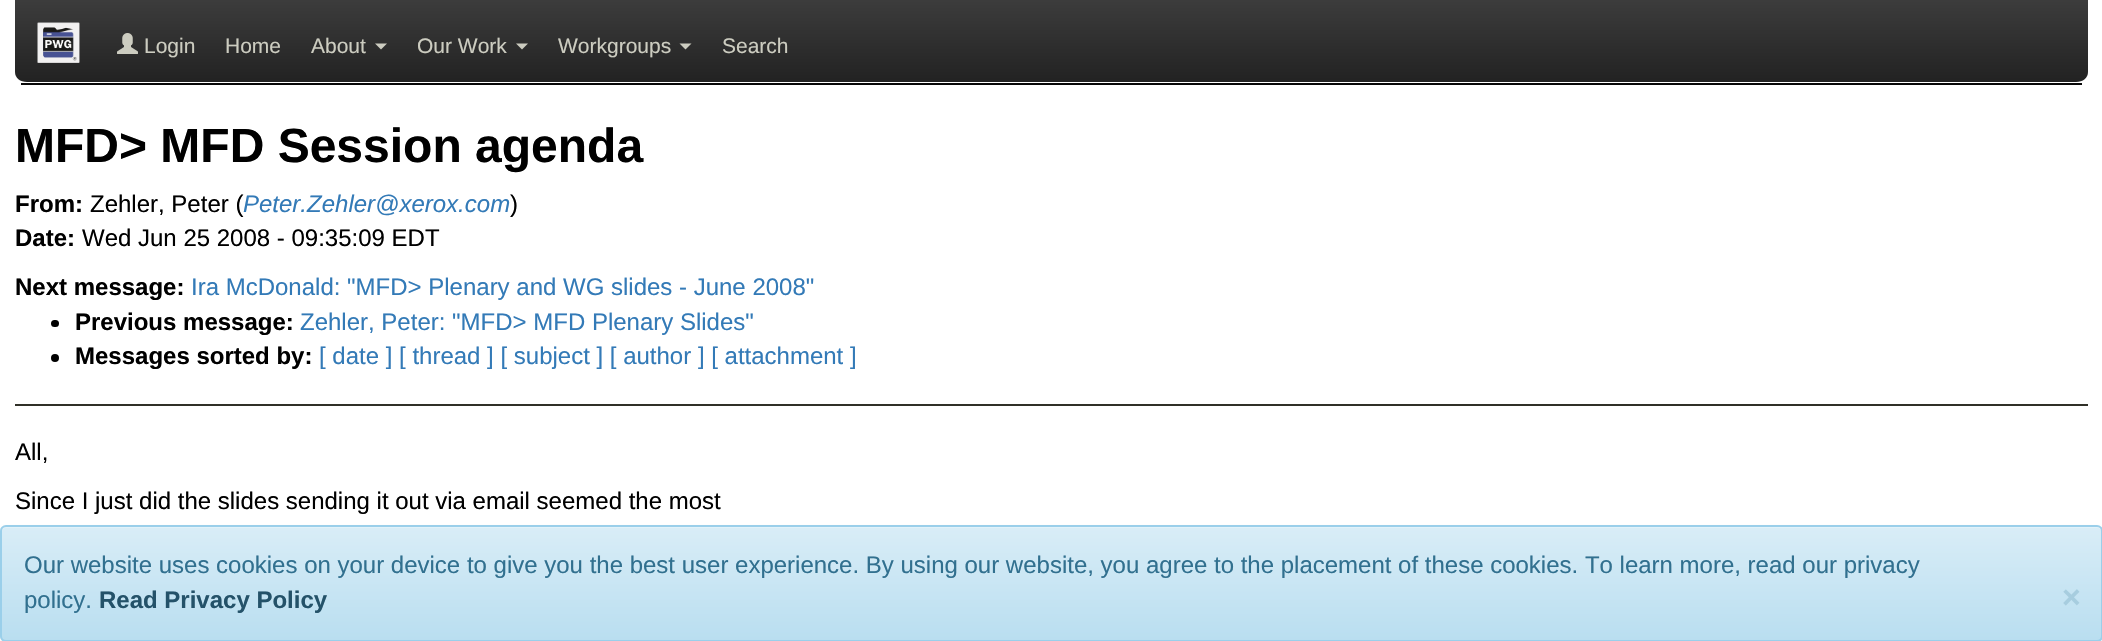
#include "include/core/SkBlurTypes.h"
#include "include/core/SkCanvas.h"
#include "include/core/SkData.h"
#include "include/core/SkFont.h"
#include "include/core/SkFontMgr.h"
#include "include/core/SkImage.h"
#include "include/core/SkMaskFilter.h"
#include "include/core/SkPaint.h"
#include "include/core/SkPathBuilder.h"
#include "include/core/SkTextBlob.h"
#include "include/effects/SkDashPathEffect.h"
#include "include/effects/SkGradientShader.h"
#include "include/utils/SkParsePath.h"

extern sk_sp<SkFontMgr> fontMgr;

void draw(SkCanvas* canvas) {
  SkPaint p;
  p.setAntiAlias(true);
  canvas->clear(SK_ColorWHITE);
  {
    const SkColor colors[] = {SkColorSetRGB(60, 60, 60), SkColorSetRGB(34, 34, 34)};
    const float stops[] = {0, 1};
    const SkPoint ends[] = {{1052, 0}, {1052, 83}};
    p.setShader(SkGradientShader::MakeLinear(ends, colors, stops, 2, SkTileMode::kClamp));
    p.setAlpha(255);
  }
  canvas->drawPath(SkPathBuilder().moveTo(15, 0).lineTo(2088, 0).lineTo(2088, 72).cubicTo(2088, 78, 2083, 82, 2076, 82).lineTo(27, 82).cubicTo(20, 82, 15, 78, 15, 72).close().detach(), p);
  p.setShader(nullptr);
  p.setColor(SkColorSetRGB(8, 8, 8));
  canvas->drawRect(SkRect::MakeLTRB(21, 83, 2082, 85), p);
  canvas->drawImageRect(SkImages::DeferredFromEncodedData(SkData::MakeFromFileName("images/1.png")), SkRect::MakeLTRB(37, 22, 80, 63), SkSamplingOptions());
  canvas->drawImageRect(SkImages::DeferredFromEncodedData(SkData::MakeFromFileName("images/2.png")), SkRect::MakeLTRB(117, 33, 138, 54), SkSamplingOptions());
  p.setColor(SkColorSetRGB(204, 204, 192));
  canvas->drawPath(SkPathBuilder().moveTo(375, 43.5f).lineTo(387, 43.5f).lineTo(381, 49.5f).close().detach(), p);
  canvas->drawPath(SkPathBuilder().moveTo(516, 43.5f).lineTo(528, 43.5f).lineTo(522, 49.5f).close().detach(), p);
  canvas->drawPath(SkPathBuilder().moveTo(679.5f, 43.5f).lineTo(691.5f, 43.5f).lineTo(685.5f, 49.5f).close().detach(), p);
  p.setColor(SK_ColorBLACK);
  canvas->drawRoundRect(SkRect::MakeLTRB(51, 320, 59, 327), 3.5f, 3.5f, p);
  canvas->drawCircle(55, 358, 4, p);
  p.setColor(SkColorSetRGB(48, 48, 40));
  canvas->drawRect(SkRect::MakeLTRB(15, 404, 2088, 406), p);
  p.setColor(SkColorSetARGB(13, 0, 0, 0));
  p.setMaskFilter(SkMaskFilter::MakeBlur(kNormal_SkBlurStyle, 1.5f));
  canvas->drawRoundRect(SkRect::MakeLTRB(0, 527, 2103, 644), 6, 6, p);
  p.setMaskFilter(nullptr);
  canvas->save();
  canvas->clipPath(SkPathBuilder().moveTo(6, 525).lineTo(2097, 525).cubicTo(2100.5f, 525, 2103, 527.5f, 2103, 531).lineTo(2103, 636).cubicTo(2103, 639.5f, 2100.5f, 642, 2097, 642).lineTo(6, 642).cubicTo(2.5f, 642, 0, 639.5f, 0, 636).lineTo(0, 531).cubicTo(0, 527.5f, 2.5f, 525, 6, 525).close().detach(), true);
  {
    const SkColor colors[] = {SkColorSetRGB(217, 237, 247), SkColorSetRGB(185, 222, 240)};
    const float stops[] = {0, 1};
    const SkPoint ends[] = {{1052, 526}, {1052, 641}};
    p.setShader(SkGradientShader::MakeLinear(ends, colors, stops, 2, SkTileMode::kClamp));
    p.setAlpha(255);
  }
  canvas->drawRect(SkRect::MakeLTRB(0, 527, 2102, 641), p);
  canvas->restore();
  p.setShader(nullptr);
  p.setColor(SkColorSetRGB(226, 242, 249));
  canvas->drawPath(SkPathBuilder().moveTo(6, 528).lineTo(2097, 528).cubicTo(2099, 528, 2102, 530, 2102, 532).cubicTo(2102, 529, 2100, 527, 2097, 527).lineTo(7, 527).cubicTo(4, 527, 2, 529, 2, 532).cubicTo(2, 530, 4, 528, 6, 528).close().detach(), p);
  p.setStyle(SkPaint::kStroke_Style);
  p.setStrokeWidth(2);
  p.setColor(SkColorSetRGB(154, 207, 234));
  canvas->drawRoundRect(SkRect::MakeLTRB(1, 526, 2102, 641), 5, 5, p);
  SkFont font1(fontMgr->matchFamilyStyle("Liberation Sans", SkFontStyle::Normal()), 21);
  font1.setSubpixel(true);
  p.setStyle(SkPaint::kFill_Style);
  p.setColor(SkColorSetRGB(204, 204, 192));
  canvas->drawString("Login", 144, 53, font1, p);
  canvas->drawString("Home", 225, 53, font1, p);
  canvas->drawString("About", 311, 53, font1, p);
  canvas->drawString("Our Work", 417, 53, font1, p);
  canvas->drawString("Workgroups", 558, 53, font1, p);
  canvas->drawString("Search", 722, 53, font1, p);
  SkFont font2(fontMgr->matchFamilyStyle("Liberation Sans", SkFontStyle::Bold()), 48);
  font2.setSubpixel(true);
  p.setColor(SK_ColorBLACK);
  canvas->drawString("MFD> MFD Session agenda", 15, 162, font2, p);
  SkFont font3(fontMgr->matchFamilyStyle("Liberation Sans", SkFontStyle::Bold()), 24);
  font3.setSubpixel(true);
  canvas->drawString("From:", 15, 212, font3, p);
  SkFont font4(fontMgr->matchFamilyStyle("Liberation Sans", SkFontStyle::Normal()), 24);
  font4.setSubpixel(true);
  canvas->drawString("Zehler, Peter (", 90, 212, font4, p);
  SkFont font5(fontMgr->matchFamilyStyle("Liberation Sans", SkFontStyle::Italic()), 24);
  font5.setSubpixel(true);
  p.setColor(SkColorSetRGB(51, 122, 183));
  canvas->drawString("Peter.Zehler@xerox.com", 243, 212, font5, p);
  p.setColor(SK_ColorBLACK);
  canvas->drawString(")", 510, 212, font4, p);
  canvas->drawString("Date:", 15, 246, font3, p);
  canvas->drawString("Wed Jun 25 2008 - 09:35:09 EDT", 82, 246, font4, p);
  canvas->drawString("Next message:", 15, 295, font3, p);
  p.setColor(SkColorSetRGB(51, 122, 183));
  canvas->drawString("Ira McDonald: \"MFD> Plenary and WG slides - June 2008\"", 191, 295, font4, p);
  p.setColor(SK_ColorBLACK);
  canvas->drawString("Previous message:", 75, 330, font3, p);
  p.setColor(SkColorSetRGB(51, 122, 183));
  canvas->drawString("Zehler, Peter: \"MFD> MFD Plenary Slides\"", 300, 330, font4, p);
  p.setColor(SK_ColorBLACK);
  canvas->drawString("Messages sorted by:", 75, 364, font3, p);
  p.setColor(SkColorSetRGB(51, 122, 183));
  canvas->drawString("[ date ] [ thread ] [ subject ] [ author ] [ attachment ]", 319, 364, font4, p);
  p.setColor(SK_ColorBLACK);
  canvas->drawString("All,", 15, 460, font4, p);
  canvas->drawString("Since I just did the slides sending it out via email seemed the most", 15, 509, font4, p);
  p.setColor(SkColorSetRGB(49, 112, 143));
  canvas->drawString("Our website uses cookies on your device to give you the best user experience. By using our website, you agree to the placement of these cookies. To learn more, read our privacy", 24, 573, font4, p);
  canvas->drawString("policy.", 24, 608, font4, p);
  p.setColor(SkColorSetRGB(36, 82, 105));
  canvas->drawString("Read Privacy Policy", 99, 608, font3, p);
  SkFont font6(fontMgr->matchFamilyStyle("Liberation Sans", SkFontStyle::Bold()), 32);
  font6.setSubpixel(true);
  p.setColor(SkColorSetRGB(167, 205, 223));
  canvas->drawString("×", 2062, 608, font6, p);
}
